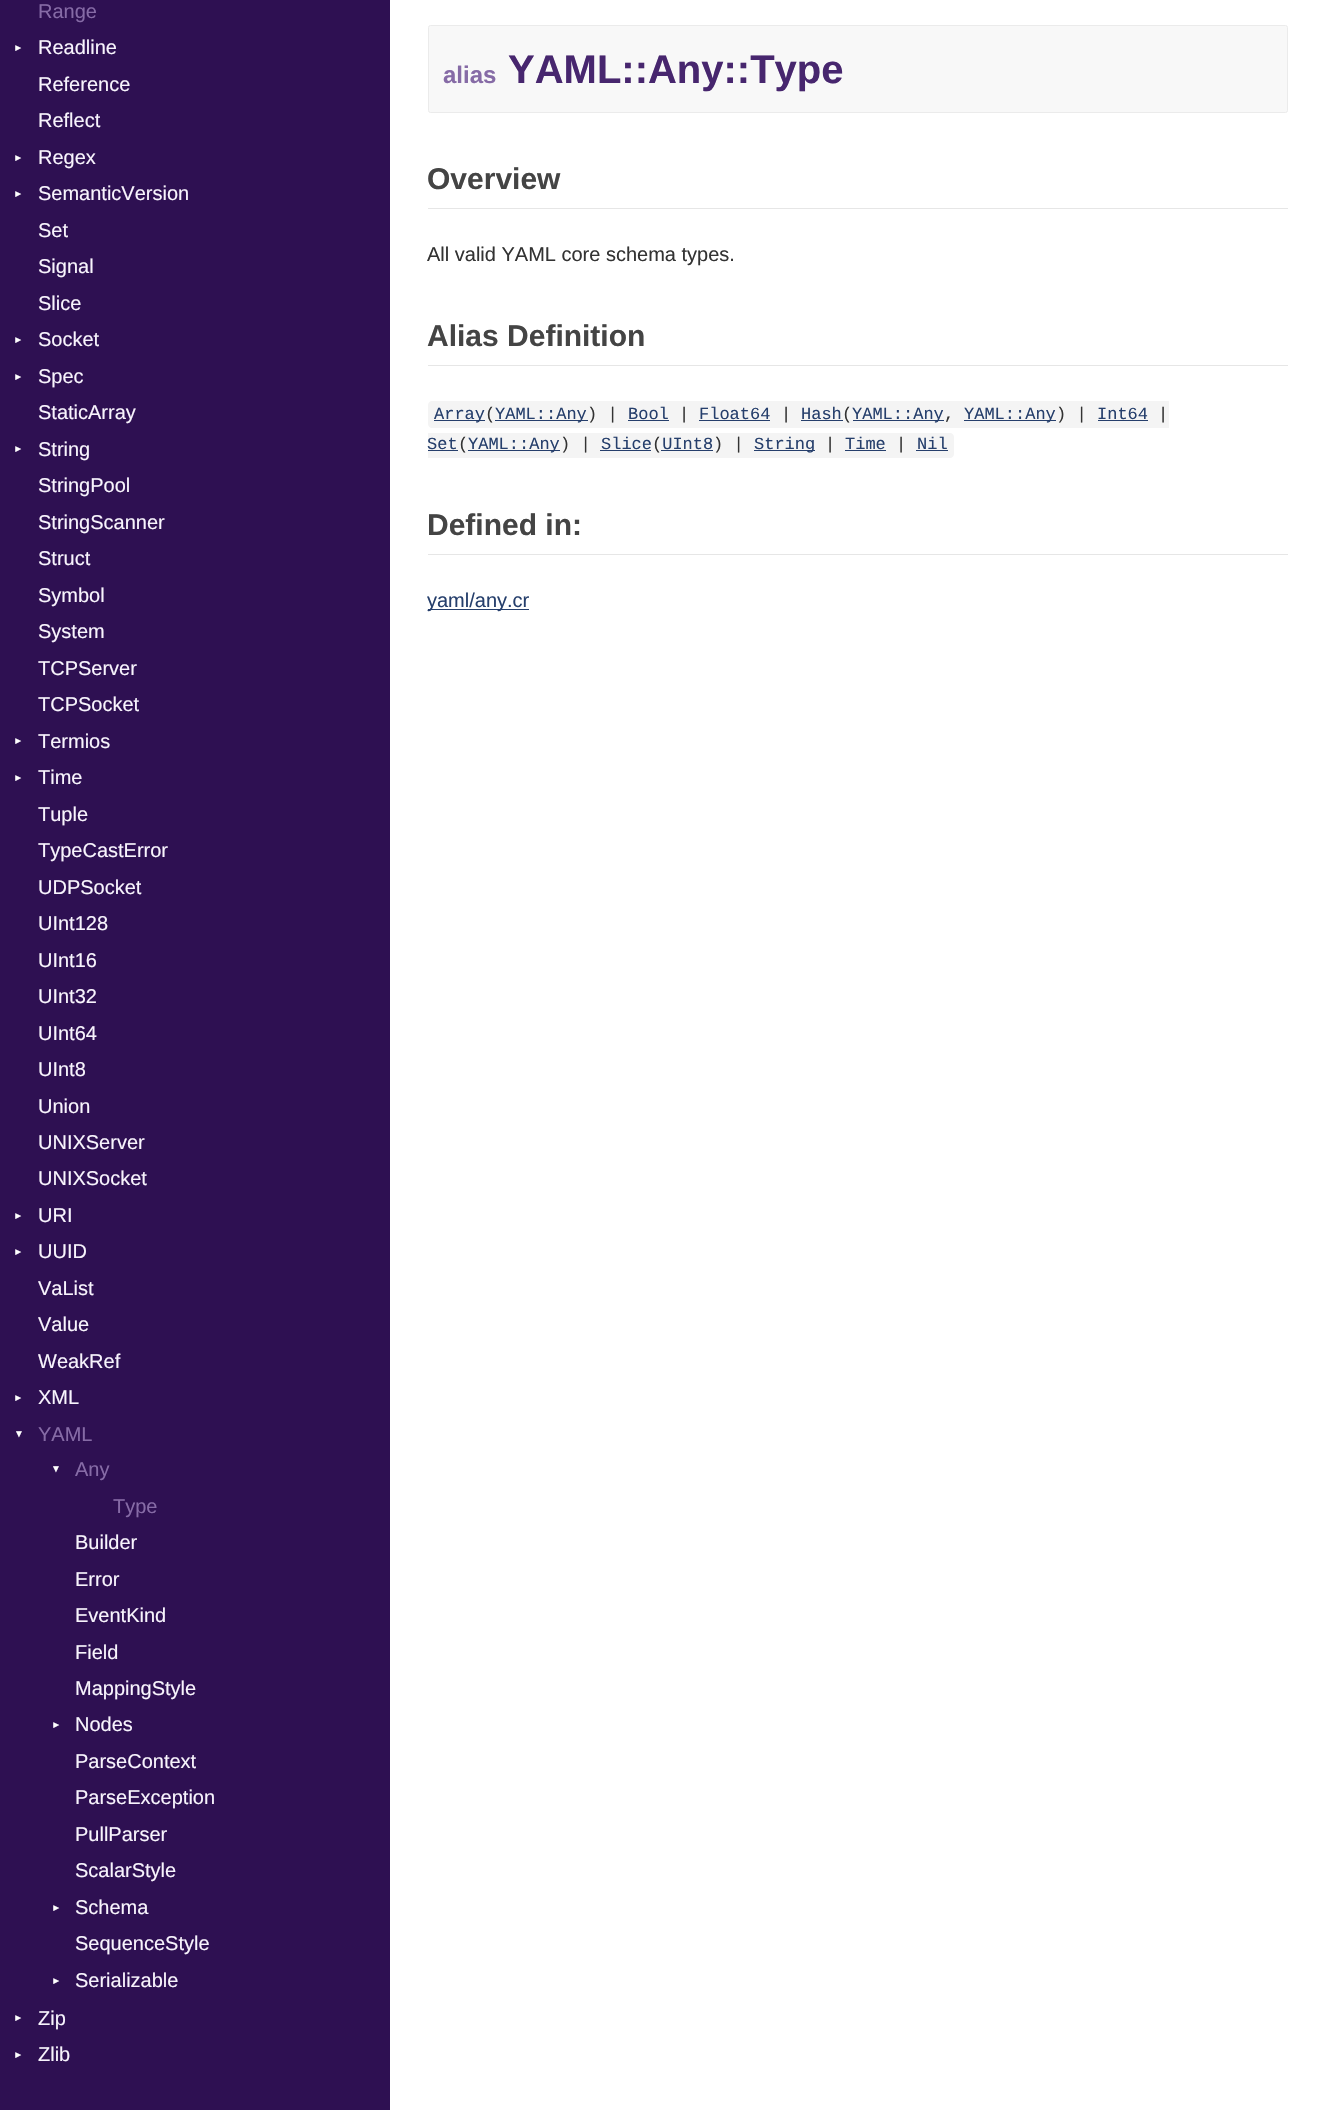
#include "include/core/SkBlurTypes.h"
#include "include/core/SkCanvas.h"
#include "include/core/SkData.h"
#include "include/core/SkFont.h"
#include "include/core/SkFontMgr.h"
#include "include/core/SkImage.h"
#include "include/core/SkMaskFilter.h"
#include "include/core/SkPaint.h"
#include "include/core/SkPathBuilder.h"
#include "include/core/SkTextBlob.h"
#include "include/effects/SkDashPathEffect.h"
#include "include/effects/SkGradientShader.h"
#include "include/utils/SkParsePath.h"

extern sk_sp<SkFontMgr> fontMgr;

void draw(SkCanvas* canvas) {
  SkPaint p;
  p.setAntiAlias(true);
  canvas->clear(SK_ColorWHITE);
  p.setColor(SkColorSetRGB(46, 16, 82));
  canvas->drawRect(SkRect::MakeLTRB(0, 0, 390, 2110), p);
  p.setColor(SkColorSetRGB(248, 248, 248));
  canvas->drawRoundRect(SkRect::MakeLTRB(428.5f, 25.5f, 1287.5f, 112.5f), 2, 2, p);
  p.setStyle(SkPaint::kStroke_Style);
  p.setStrokeWidth(1);
  p.setColor(SkColorSetRGB(235, 235, 235));
  canvas->drawRoundRect(SkRect::MakeLTRB(428.5f, 25.5f, 1287.5f, 112.5f), 2, 2, p);
  p.setStyle(SkPaint::kFill_Style);
  p.setColor(SkColorSetRGB(230, 230, 230));
  canvas->drawRect(SkRect::MakeLTRB(428, 208, 1288, 209), p);
  canvas->drawRect(SkRect::MakeLTRB(428, 365, 1288, 366), p);
  p.setColor(SkColorSetRGB(244, 244, 244));
  canvas->drawPath(SkPathBuilder().moveTo(432, 401).lineTo(485, 401).lineTo(485, 428).lineTo(432, 428).cubicTo(430, 428, 428, 426, 428, 424).lineTo(428, 405).cubicTo(428, 403, 430, 401, 432, 401).close().detach(), p);
  p.setColor(SkColorSetRGB(38, 63, 108));
  canvas->drawRect(SkRect::MakeLTRB(434, 420, 485, 421), p);
  p.setColor(SkColorSetRGB(244, 244, 244));
  canvas->drawRect(SkRect::MakeLTRB(485, 401, 1169, 428), p);
  p.setColor(SkColorSetRGB(38, 63, 108));
  canvas->drawRect(SkRect::MakeLTRB(495, 420, 588, 421), p);
  canvas->drawRect(SkRect::MakeLTRB(628, 420, 669, 421), p);
  canvas->drawRect(SkRect::MakeLTRB(699, 420, 770, 421), p);
  canvas->drawRect(SkRect::MakeLTRB(801, 420, 843, 421), p);
  canvas->drawRect(SkRect::MakeLTRB(853, 420, 944, 421), p);
  canvas->drawRect(SkRect::MakeLTRB(964, 420, 1056, 421), p);
  canvas->drawRect(SkRect::MakeLTRB(1098, 420, 1148, 421), p);
  p.setColor(SkColorSetRGB(244, 244, 244));
  canvas->drawRect(SkRect::MakeLTRB(428, 433, 916, 458), p);
  p.setColor(SkColorSetRGB(38, 63, 108));
  canvas->drawRect(SkRect::MakeLTRB(600, 450, 651, 451), p);
  canvas->drawRect(SkRect::MakeLTRB(428, 450, 458, 451), p);
  canvas->drawRect(SkRect::MakeLTRB(468, 450, 560, 451), p);
  canvas->drawRect(SkRect::MakeLTRB(661, 450, 713, 451), p);
  canvas->drawRect(SkRect::MakeLTRB(754, 450, 815, 451), p);
  canvas->drawRect(SkRect::MakeLTRB(845, 450, 886, 451), p);
  p.setColor(SkColorSetRGB(244, 244, 244));
  canvas->drawPath(SkPathBuilder().moveTo(916, 433).lineTo(950, 433).cubicTo(952, 433, 954, 435, 954, 437).lineTo(954, 454).cubicTo(954, 456, 952, 458, 950, 458).lineTo(916, 458).close().detach(), p);
  p.setColor(SkColorSetRGB(38, 63, 108));
  canvas->drawRect(SkRect::MakeLTRB(916, 450, 948, 451), p);
  p.setColor(SkColorSetRGB(230, 230, 230));
  canvas->drawRect(SkRect::MakeLTRB(428, 554, 1288, 555), p);
  p.setColor(SkColorSetRGB(38, 63, 108));
  canvas->drawRect(SkRect::MakeLTRB(428, 609, 529, 610), p);
  SkFont font1(fontMgr->matchFamilyStyle("Liberation Sans", SkFontStyle::Normal()), 20);
  font1.setSubpixel(true);
  p.setColor(SkColorSetRGB(134, 107, 166));
  canvas->drawString("Range", 38, 18, font1, p);
  SkFont font2(fontMgr->matchFamilyStyle("Liberation Sans", SkFontStyle::Normal()), 10);
  font2.setSubpixel(true);
  p.setColor(SK_ColorWHITE);
  canvas->save();
  canvas->rotate(-90, 21, 53);
  canvas->drawString("▼", 21, 53, font2, p);
  canvas->restore();
  p.setColor(SkColorSetRGB(248, 244, 253));
  canvas->drawString("Readline", 38, 54, font1, p);
  canvas->drawString("Reference", 38, 91, font1, p);
  canvas->drawString("Reflect", 38, 127, font1, p);
  p.setColor(SK_ColorWHITE);
  canvas->save();
  canvas->rotate(-90, 21, 163);
  canvas->drawString("▼", 21, 163, font2, p);
  canvas->restore();
  p.setColor(SkColorSetRGB(248, 244, 253));
  canvas->drawString("Regex", 38, 164, font1, p);
  p.setColor(SK_ColorWHITE);
  canvas->save();
  canvas->rotate(-90, 21, 199);
  canvas->drawString("▼", 21, 199, font2, p);
  canvas->restore();
  p.setColor(SkColorSetRGB(248, 244, 253));
  canvas->drawString("SemanticVersion", 38, 200, font1, p);
  canvas->drawString("Set", 38, 237, font1, p);
  canvas->drawString("Signal", 38, 273, font1, p);
  canvas->drawString("Slice", 38, 310, font1, p);
  p.setColor(SK_ColorWHITE);
  canvas->save();
  canvas->rotate(-90, 21, 345);
  canvas->drawString("▼", 21, 345, font2, p);
  canvas->restore();
  p.setColor(SkColorSetRGB(248, 244, 253));
  canvas->drawString("Socket", 38, 346, font1, p);
  p.setColor(SK_ColorWHITE);
  canvas->save();
  canvas->rotate(-90, 21, 382);
  canvas->drawString("▼", 21, 382, font2, p);
  canvas->restore();
  p.setColor(SkColorSetRGB(248, 244, 253));
  canvas->drawString("Spec", 38, 383, font1, p);
  canvas->drawString("StaticArray", 38, 419, font1, p);
  p.setColor(SK_ColorWHITE);
  canvas->save();
  canvas->rotate(-90, 21, 454);
  canvas->drawString("▼", 21, 454, font2, p);
  canvas->restore();
  p.setColor(SkColorSetRGB(248, 244, 253));
  canvas->drawString("String", 38, 456, font1, p);
  canvas->drawString("StringPool", 38, 492, font1, p);
  canvas->drawString("StringScanner", 38, 529, font1, p);
  canvas->drawString("Struct", 38, 565, font1, p);
  canvas->drawString("Symbol", 38, 602, font1, p);
  canvas->drawString("System", 38, 638, font1, p);
  canvas->drawString("TCPServer", 38, 675, font1, p);
  canvas->drawString("TCPSocket", 38, 711, font1, p);
  p.setColor(SK_ColorWHITE);
  canvas->save();
  canvas->rotate(-90, 21, 746);
  canvas->drawString("▼", 21, 746, font2, p);
  canvas->restore();
  p.setColor(SkColorSetRGB(248, 244, 253));
  canvas->drawString("Termios", 38, 748, font1, p);
  p.setColor(SK_ColorWHITE);
  canvas->save();
  canvas->rotate(-90, 21, 783);
  canvas->drawString("▼", 21, 783, font2, p);
  canvas->restore();
  p.setColor(SkColorSetRGB(248, 244, 253));
  canvas->drawString("Time", 38, 784, font1, p);
  canvas->drawString("Tuple", 38, 821, font1, p);
  canvas->drawString("TypeCastError", 38, 857, font1, p);
  canvas->drawString("UDPSocket", 38, 894, font1, p);
  canvas->drawString("UInt128", 38, 930, font1, p);
  canvas->drawString("UInt16", 38, 967, font1, p);
  canvas->drawString("UInt32", 38, 1003, font1, p);
  canvas->drawString("UInt64", 38, 1040, font1, p);
  canvas->drawString("UInt8", 38, 1076, font1, p);
  canvas->drawString("Union", 38, 1113, font1, p);
  canvas->drawString("UNIXServer", 38, 1149, font1, p);
  canvas->drawString("UNIXSocket", 38, 1185, font1, p);
  p.setColor(SK_ColorWHITE);
  canvas->save();
  canvas->rotate(-90, 21, 1221);
  canvas->drawString("▼", 21, 1221, font2, p);
  canvas->restore();
  p.setColor(SkColorSetRGB(248, 244, 253));
  canvas->drawString("URI", 38, 1222, font1, p);
  p.setColor(SK_ColorWHITE);
  canvas->save();
  canvas->rotate(-90, 21, 1257);
  canvas->drawString("▼", 21, 1257, font2, p);
  canvas->restore();
  p.setColor(SkColorSetRGB(248, 244, 253));
  canvas->drawString("UUID", 38, 1258, font1, p);
  canvas->drawString("VaList", 38, 1295, font1, p);
  canvas->drawString("Value", 38, 1331, font1, p);
  canvas->drawString("WeakRef", 38, 1368, font1, p);
  p.setColor(SK_ColorWHITE);
  canvas->save();
  canvas->rotate(-90, 21, 1403);
  canvas->drawString("▼", 21, 1403, font2, p);
  canvas->restore();
  p.setColor(SkColorSetRGB(248, 244, 253));
  canvas->drawString("XML", 38, 1404, font1, p);
  p.setColor(SK_ColorWHITE);
  canvas->drawString("▼", 14, 1437, font2, p);
  p.setColor(SkColorSetRGB(134, 107, 166));
  canvas->drawString("YAML", 38, 1441, font1, p);
  p.setColor(SK_ColorWHITE);
  canvas->drawString("▼", 51, 1472, font2, p);
  p.setColor(SkColorSetRGB(134, 107, 166));
  canvas->drawString("Any", 75, 1476, font1, p);
  canvas->drawString("Type", 113, 1513, font1, p);
  p.setColor(SkColorSetRGB(248, 244, 253));
  canvas->drawString("Builder", 75, 1549, font1, p);
  canvas->drawString("Error", 75, 1586, font1, p);
  canvas->drawString("EventKind", 75, 1622, font1, p);
  canvas->drawString("Field", 75, 1659, font1, p);
  canvas->drawString("MappingStyle", 75, 1695, font1, p);
  p.setColor(SK_ColorWHITE);
  canvas->save();
  canvas->rotate(-90, 59, 1730);
  canvas->drawString("▼", 59, 1730, font2, p);
  canvas->restore();
  p.setColor(SkColorSetRGB(248, 244, 253));
  canvas->drawString("Nodes", 75, 1731, font1, p);
  canvas->drawString("ParseContext", 75, 1768, font1, p);
  canvas->drawString("ParseException", 75, 1804, font1, p);
  canvas->drawString("PullParser", 75, 1841, font1, p);
  canvas->drawString("ScalarStyle", 75, 1877, font1, p);
  p.setColor(SK_ColorWHITE);
  canvas->save();
  canvas->rotate(-90, 59, 1913);
  canvas->drawString("▼", 59, 1913, font2, p);
  canvas->restore();
  p.setColor(SkColorSetRGB(248, 244, 253));
  canvas->drawString("Schema", 75, 1914, font1, p);
  canvas->drawString("SequenceStyle", 75, 1950, font1, p);
  p.setColor(SK_ColorWHITE);
  canvas->save();
  canvas->rotate(-90, 59, 1986);
  canvas->drawString("▼", 59, 1986, font2, p);
  canvas->restore();
  p.setColor(SkColorSetRGB(248, 244, 253));
  canvas->drawString("Serializable", 75, 1987, font1, p);
  p.setColor(SK_ColorWHITE);
  canvas->save();
  canvas->rotate(-90, 21, 2023);
  canvas->drawString("▼", 21, 2023, font2, p);
  canvas->restore();
  p.setColor(SkColorSetRGB(248, 244, 253));
  canvas->drawString("Zip", 38, 2025, font1, p);
  p.setColor(SK_ColorWHITE);
  canvas->save();
  canvas->rotate(-90, 21, 2060);
  canvas->drawString("▼", 21, 2060, font2, p);
  canvas->restore();
  p.setColor(SkColorSetRGB(248, 244, 253));
  canvas->drawString("Zlib", 38, 2061, font1, p);
  SkFont font3(fontMgr->matchFamilyStyle("Liberation Sans", SkFontStyle::Bold()), 24);
  font3.setSubpixel(true);
  p.setColor(SkColorSetRGB(134, 107, 166));
  canvas->drawString("alias", 443, 83, font3, p);
  SkFont font4(fontMgr->matchFamilyStyle("Liberation Sans", SkFontStyle::Bold()), 40);
  font4.setSubpixel(true);
  p.setColor(SkColorSetRGB(71, 38, 110));
  canvas->drawString("YAML::Any::Type", 508, 83, font4, p);
  SkFont font5(fontMgr->matchFamilyStyle("Liberation Sans", SkFontStyle::Bold()), 30);
  font5.setSubpixel(true);
  p.setColor(SkColorSetRGB(68, 68, 68));
  canvas->drawString("Overview", 427, 189, font5, p);
  p.setColor(SkColorSetRGB(51, 51, 51));
  canvas->drawString("All valid YAML core schema types.", 427, 261, font1, p);
  p.setColor(SkColorSetRGB(68, 68, 68));
  canvas->drawString("Alias Definition", 427, 346, font5, p);
  SkFont font6(fontMgr->matchFamilyStyle("Liberation Mono", SkFontStyle::Normal()), 17);
  font6.setSubpixel(true);
  p.setColor(SkColorSetRGB(38, 63, 108));
  canvas->drawString("Array", 434, 419, font6, p);
  p.setColor(SkColorSetRGB(51, 51, 51));
  canvas->drawString("(", 485, 419, font6, p);
  p.setColor(SkColorSetRGB(38, 63, 108));
  canvas->drawString("YAML::Any", 495, 419, font6, p);
  p.setColor(SkColorSetRGB(51, 51, 51));
  canvas->drawString(") |", 587, 419, font6, p);
  p.setColor(SkColorSetRGB(38, 63, 108));
  canvas->drawString("Bool", 628, 419, font6, p);
  p.setColor(SkColorSetRGB(51, 51, 51));
  canvas->drawString("|", 679, 419, font6, p);
  p.setColor(SkColorSetRGB(38, 63, 108));
  canvas->drawString("Float64", 699, 419, font6, p);
  p.setColor(SkColorSetRGB(51, 51, 51));
  canvas->drawString("|", 781, 419, font6, p);
  p.setColor(SkColorSetRGB(38, 63, 108));
  canvas->drawString("Hash", 801, 419, font6, p);
  p.setColor(SkColorSetRGB(51, 51, 51));
  canvas->drawString("(", 842, 419, font6, p);
  p.setColor(SkColorSetRGB(38, 63, 108));
  canvas->drawString("YAML::Any", 852, 419, font6, p);
  p.setColor(SkColorSetRGB(51, 51, 51));
  canvas->drawString(",", 944, 419, font6, p);
  p.setColor(SkColorSetRGB(38, 63, 108));
  canvas->drawString("YAML::Any", 964, 419, font6, p);
  p.setColor(SkColorSetRGB(51, 51, 51));
  canvas->drawString(") |", 1056, 419, font6, p);
  p.setColor(SkColorSetRGB(38, 63, 108));
  canvas->drawString("Int64", 1097, 419, font6, p);
  p.setColor(SkColorSetRGB(51, 51, 51));
  canvas->drawString("|", 1158, 419, font6, p);
  canvas->drawString("(", 458, 449, font6, p);
  canvas->drawString(") |", 560, 449, font6, p);
  p.setColor(SkColorSetRGB(38, 63, 108));
  canvas->drawString("Slice UInt8", 601, 449, font6, p);
  canvas->drawString("Set", 427, 449, font6, p);
  canvas->drawString("YAML::Any", 468, 449, font6, p);
  p.setColor(SkColorSetRGB(51, 51, 51));
  canvas->drawString("(", 652, 449, font6, p);
  canvas->drawString(") |", 713, 449, font6, p);
  p.setColor(SkColorSetRGB(38, 63, 108));
  canvas->drawString("String", 754, 449, font6, p);
  p.setColor(SkColorSetRGB(51, 51, 51));
  canvas->drawString("|", 825, 449, font6, p);
  p.setColor(SkColorSetRGB(38, 63, 108));
  canvas->drawString("Time", 845, 449, font6, p);
  p.setColor(SkColorSetRGB(51, 51, 51));
  canvas->drawString("|", 896, 449, font6, p);
  p.setColor(SkColorSetRGB(38, 63, 108));
  canvas->drawString("Nil", 917, 449, font6, p);
  p.setColor(SkColorSetRGB(68, 68, 68));
  canvas->drawString("Defined in:", 427, 535, font5, p);
  p.setColor(SkColorSetRGB(38, 63, 108));
  canvas->drawString("yaml/any.cr", 427, 607, font1, p);
}
